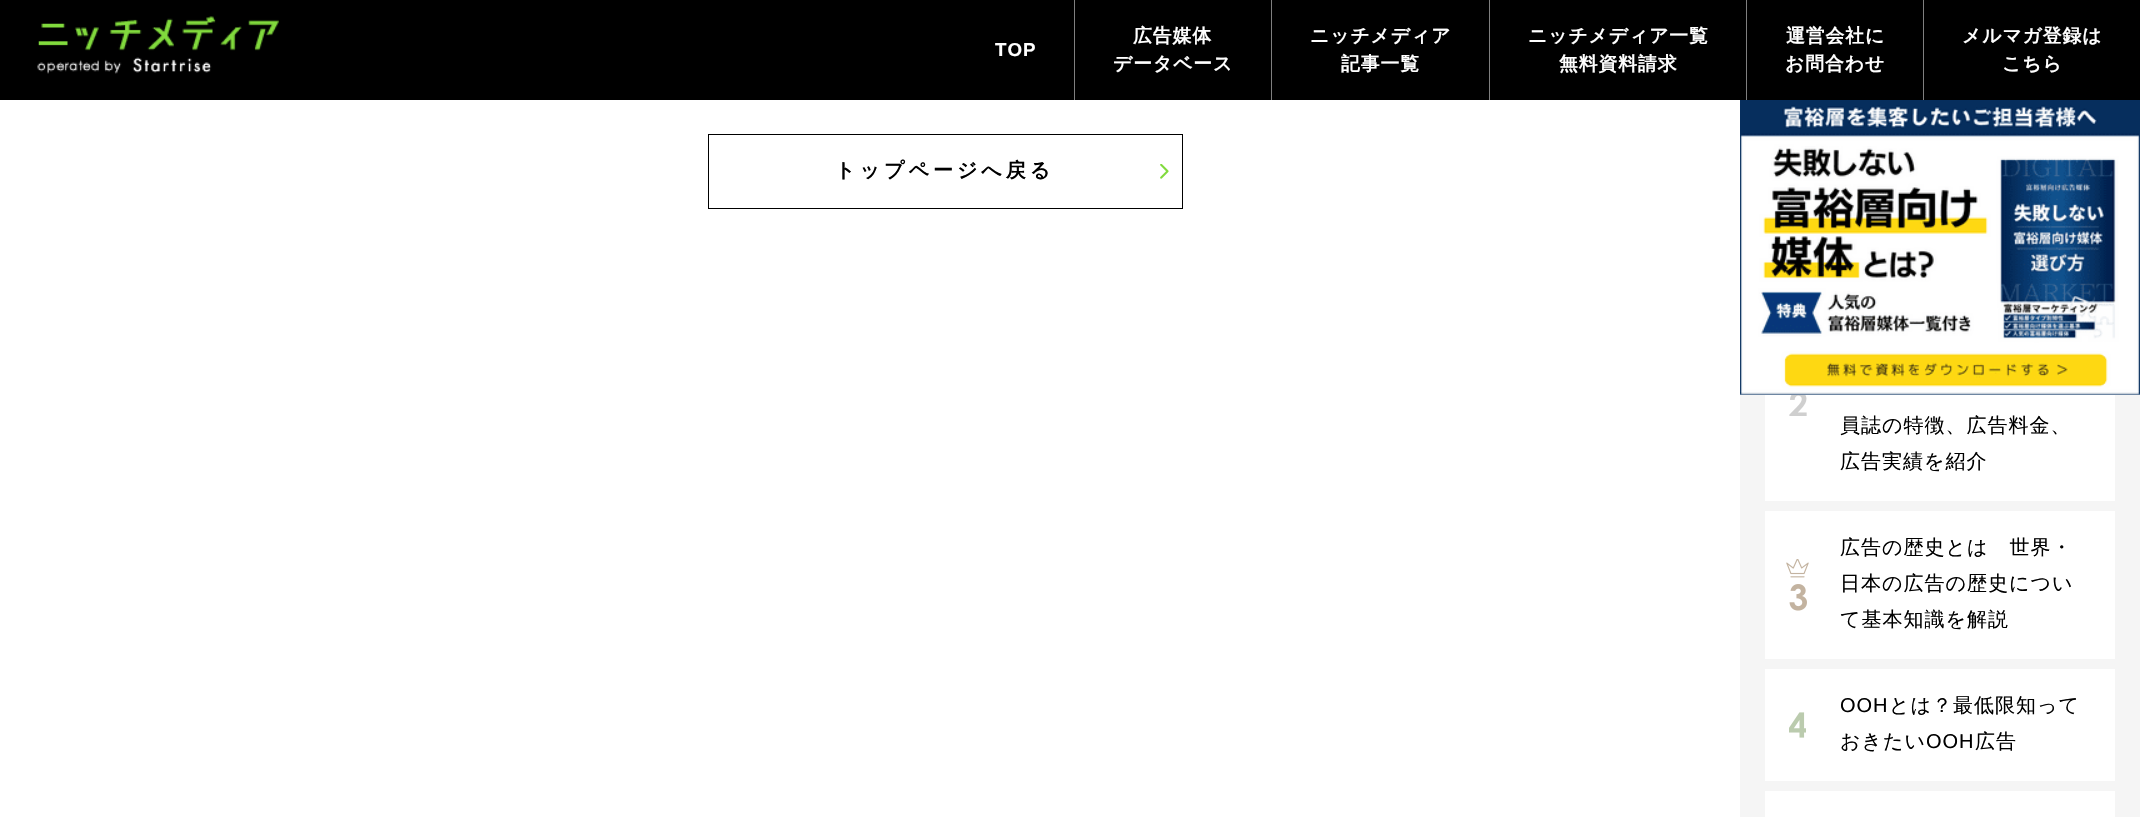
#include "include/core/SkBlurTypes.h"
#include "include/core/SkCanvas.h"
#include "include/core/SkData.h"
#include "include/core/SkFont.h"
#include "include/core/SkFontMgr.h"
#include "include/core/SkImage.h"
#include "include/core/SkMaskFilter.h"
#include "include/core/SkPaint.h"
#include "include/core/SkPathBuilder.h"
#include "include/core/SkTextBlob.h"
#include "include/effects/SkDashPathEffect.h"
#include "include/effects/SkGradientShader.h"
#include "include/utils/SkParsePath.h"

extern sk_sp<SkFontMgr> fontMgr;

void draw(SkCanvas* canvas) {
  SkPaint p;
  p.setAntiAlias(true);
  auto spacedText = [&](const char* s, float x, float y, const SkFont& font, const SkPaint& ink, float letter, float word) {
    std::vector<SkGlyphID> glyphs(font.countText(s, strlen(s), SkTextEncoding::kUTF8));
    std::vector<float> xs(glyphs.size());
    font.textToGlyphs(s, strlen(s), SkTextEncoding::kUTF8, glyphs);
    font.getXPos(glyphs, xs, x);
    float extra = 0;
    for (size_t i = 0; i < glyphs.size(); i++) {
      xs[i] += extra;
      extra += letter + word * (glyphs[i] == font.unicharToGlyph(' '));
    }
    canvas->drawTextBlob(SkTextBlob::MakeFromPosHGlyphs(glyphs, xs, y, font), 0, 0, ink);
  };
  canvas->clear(SK_ColorWHITE);
  p.setColor(SK_ColorBLACK);
  canvas->drawRect(SkRect::MakeLTRB(0, 0, 2140, 100), p);
  canvas->drawImageRect(SkImages::DeferredFromEncodedData(SkData::MakeFromFileName("images/1.png")), SkRect::MakeLTRB(37, 16, 279, 74), SkSamplingOptions());
  p.setColor(SkColorSetRGB(127, 127, 127));
  canvas->drawRect(SkRect::MakeLTRB(1074, 0, 1075, 100), p);
  canvas->drawRect(SkRect::MakeLTRB(1271, 0, 1272, 100), p);
  canvas->drawRect(SkRect::MakeLTRB(1489, 0, 1490, 100), p);
  canvas->drawRect(SkRect::MakeLTRB(1746, 0, 1747, 100), p);
  canvas->drawRect(SkRect::MakeLTRB(1923, 0, 1924, 100), p);
  canvas->drawImageRect(SkImages::DeferredFromEncodedData(SkData::MakeFromFileName("images/2.png")), SkRect::MakeLTRB(1160, 164, 1169, 179), SkSamplingOptions());
  p.setStyle(SkPaint::kStroke_Style);
  p.setStrokeWidth(1);
  p.setColor(SK_ColorBLACK);
  canvas->drawRect(SkRect::MakeLTRB(708.5f, 134.5f, 1182.5f, 208.5f), p);
  p.setStyle(SkPaint::kFill_Style);
  p.setColor(SkColorSetRGB(245, 245, 245));
  canvas->drawRect(SkRect::MakeLTRB(1740, 395, 2140, 817), p);
  canvas->drawImageRect(SkImages::DeferredFromEncodedData(SkData::MakeFromFileName("images/3.png")), SkRect::MakeLTRB(1740, 100, 2140, 395), SkSamplingOptions());
  p.setColor(SK_ColorWHITE);
  canvas->drawRect(SkRect::MakeLTRB(1765, 395, 2115, 501), p);
  canvas->drawImageRect(SkImages::DeferredFromEncodedData(SkData::MakeFromFileName("images/4.png")), SkRect::MakeLTRB(1789, 395, 1807, 416), SkSamplingOptions());
  canvas->drawRect(SkRect::MakeLTRB(1765, 511, 2115, 659), p);
  canvas->drawImageRect(SkImages::DeferredFromEncodedData(SkData::MakeFromFileName("images/5.png")), SkRect::MakeLTRB(1786, 559, 1809, 611), SkSamplingOptions());
  canvas->drawRect(SkRect::MakeLTRB(1765, 669, 2115, 781), p);
  canvas->drawImageRect(SkImages::DeferredFromEncodedData(SkData::MakeFromFileName("images/6.png")), SkRect::MakeLTRB(1789, 712, 1806, 738), SkSamplingOptions());
  canvas->drawRect(SkRect::MakeLTRB(1765, 791, 2115, 817), p);
  SkFont font1(fontMgr->matchFamilyStyle("Liberation Sans", SkFontStyle::Bold()), 18.75f);
  font1.setSubpixel(true);
  spacedText("TOP", 995, 56, font1, p, 1, 0);
  SkFont font2(fontMgr->matchFamilyStyle("WenQuanYi Zen Hei", SkFontStyle::Bold()), 18.75f);
  font2.setSubpixel(true);
  spacedText("広告媒体", 1133, 42, font2, p, 1, 0);
  spacedText("データベース", 1113, 70, font2, p, 1, 0);
  spacedText("ニッチメディア", 1310, 42, font2, p, 1, 0);
  spacedText("記事一覧", 1341, 70, font2, p, 1, 0);
  spacedText("ニッチメディア一覧", 1528, 42, font2, p, 1, 0);
  spacedText("無料資料請求", 1559, 70, font2, p, 1, 0);
  spacedText("運営会社に", 1786, 42, font2, p, 1, 0);
  spacedText("お問合わせ", 1785, 70, font2, p, 1, 0);
  spacedText("メルマガ登録は", 1962, 42, font2, p, 1, 0);
  spacedText("こちら", 2002, 70, font2, p, 1, 0);
  SkFont font3(fontMgr->matchFamilyStyle("WenQuanYi Zen Hei", SkFontStyle::Bold()), 20);
  font3.setSubpixel(true);
  p.setColor(SK_ColorBLACK);
  spacedText("トップページへ戻る", 835, 177, font3, p, 4, 0);
  SkFont font4(fontMgr->matchFamilyStyle("WenQuanYi Zen Hei", SkFontStyle(500, SkFontStyle::kNormal_Width, SkFontStyle::kUpright_Slant)), 20);
  font4.setSubpixel(true);
  spacedText("員誌の特徴、広告料金、", 1840, 432, font4, p, 1, 0);
  spacedText("広告実績を紹介", 1840, 468, font4, p, 1, 0);
  spacedText("広告の歴史とは　世界・", 1840, 554, font4, p, 1, 0);
  spacedText("日本の広告の歴史につい", 1840, 590, font4, p, 1, 0);
  spacedText("て基本知識を解説", 1840, 626, font4, p, 1, 0);
  SkFont font5(fontMgr->matchFamilyStyle("Liberation Sans", SkFontStyle::Normal()), 20);
  font5.setSubpixel(true);
  spacedText("OOH", 1840, 712, font5, p, 1, 0);
  spacedText("とは？最低限知って", 1889, 712, font4, p, 1, 0);
  spacedText("おきたい", 1840, 748, font4, p, 1, 0);
  spacedText("OOH", 1926, 748, font5, p, 1, 0);
  spacedText("広告", 1975, 748, font4, p, 1, 0);
}
